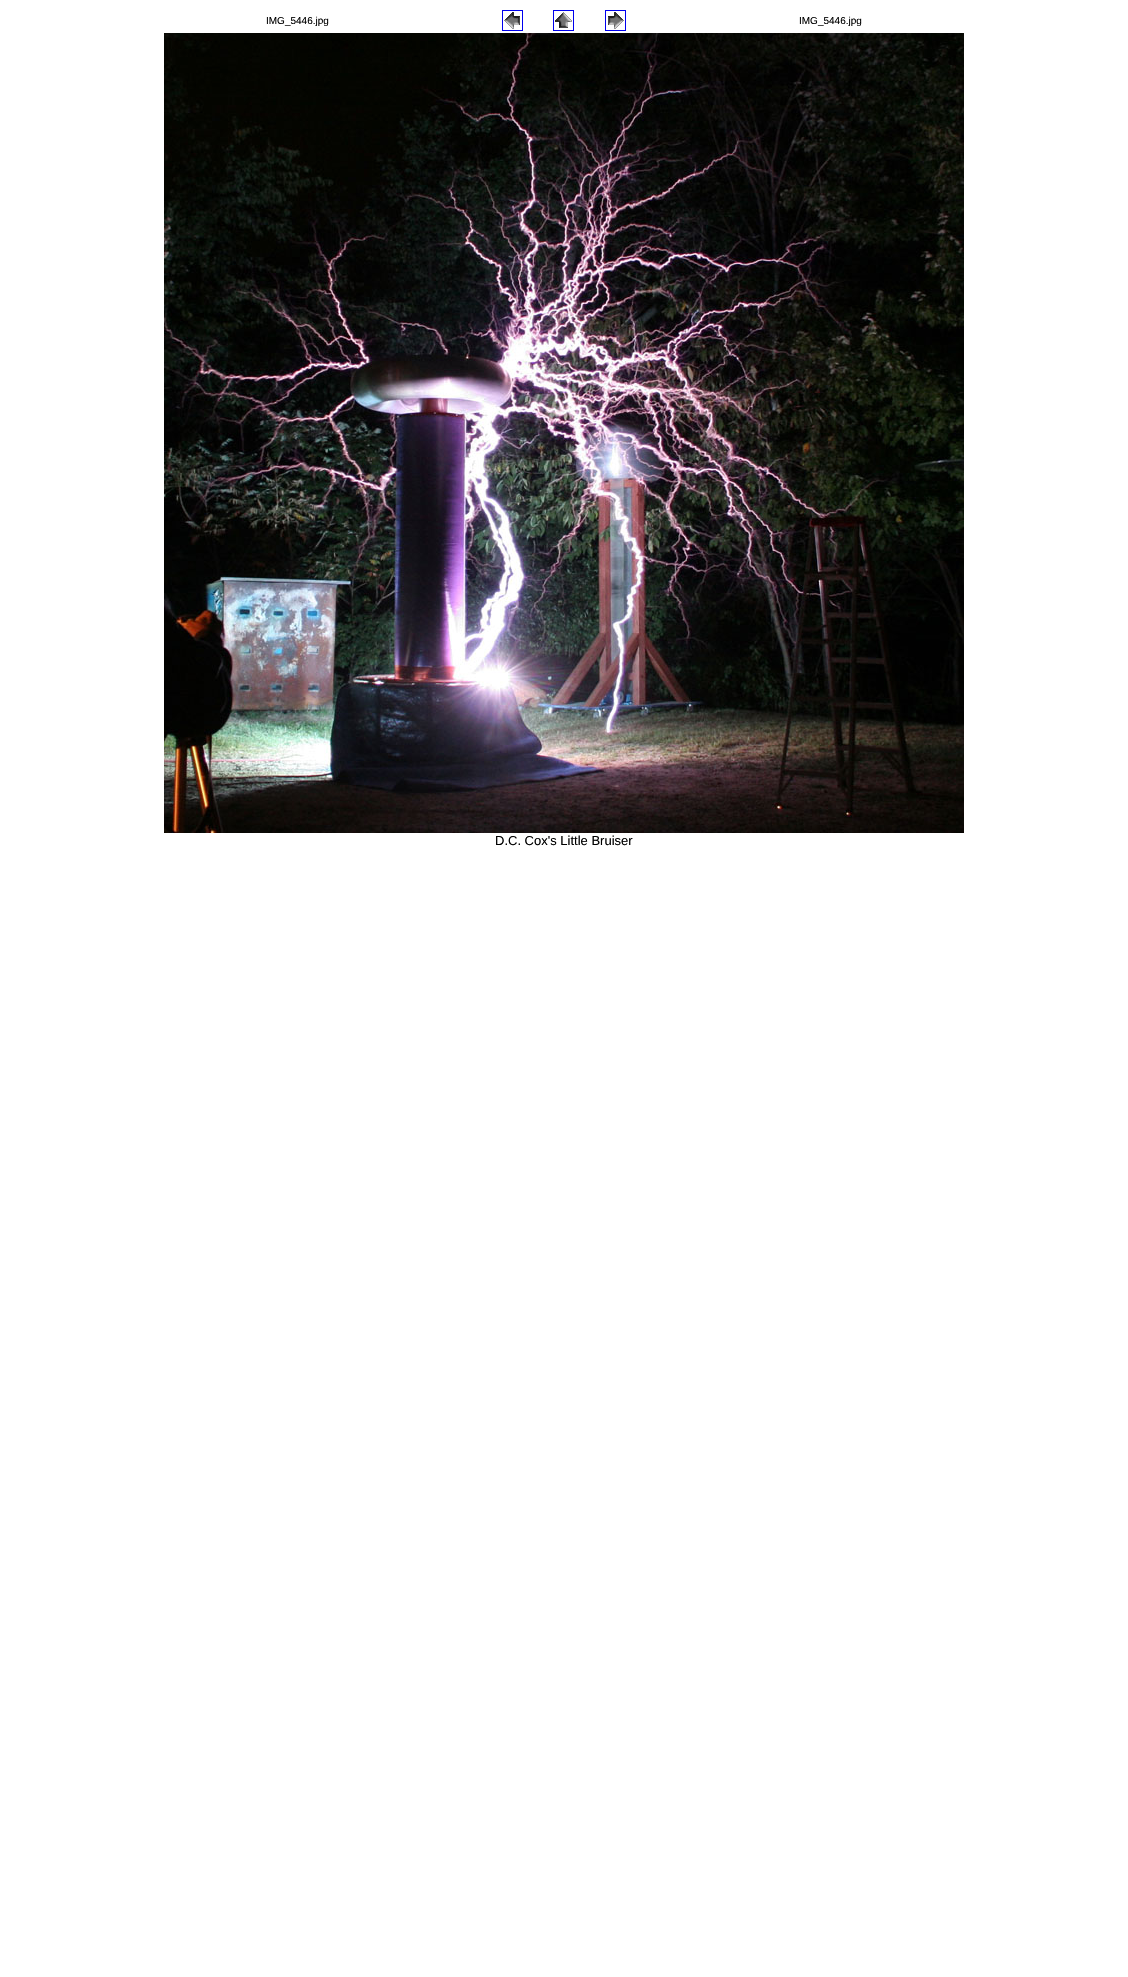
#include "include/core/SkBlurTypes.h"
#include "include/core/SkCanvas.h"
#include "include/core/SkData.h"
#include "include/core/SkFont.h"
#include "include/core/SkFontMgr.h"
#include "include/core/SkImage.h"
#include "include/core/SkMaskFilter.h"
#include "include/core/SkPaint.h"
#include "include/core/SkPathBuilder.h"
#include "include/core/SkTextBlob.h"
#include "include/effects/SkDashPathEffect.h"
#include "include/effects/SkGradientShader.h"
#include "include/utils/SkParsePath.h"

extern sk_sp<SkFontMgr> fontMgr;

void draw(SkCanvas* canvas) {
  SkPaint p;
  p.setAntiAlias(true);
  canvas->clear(SK_ColorWHITE);
  p.setStyle(SkPaint::kStroke_Style);
  p.setStrokeWidth(1);
  p.setColor(SkColorSetRGB(0, 0, 238));
  canvas->drawRect(SkRect::MakeLTRB(502.5f, 10.5f, 522.5f, 30.5f), p);
  canvas->drawImageRect(SkImages::DeferredFromEncodedData(SkData::MakeFromFileName("images/1.png")), SkRect::MakeLTRB(504, 12, 520, 29), SkSamplingOptions());
  canvas->drawRect(SkRect::MakeLTRB(553.5f, 10.5f, 573.5f, 30.5f), p);
  canvas->drawImageRect(SkImages::DeferredFromEncodedData(SkData::MakeFromFileName("images/2.png")), SkRect::MakeLTRB(555, 12, 572, 28), SkSamplingOptions());
  canvas->drawRect(SkRect::MakeLTRB(605.5f, 10.5f, 625.5f, 30.5f), p);
  canvas->drawImageRect(SkImages::DeferredFromEncodedData(SkData::MakeFromFileName("images/3.png")), SkRect::MakeLTRB(608, 12, 624, 29), SkSamplingOptions());
  canvas->drawImageRect(SkImages::DeferredFromEncodedData(SkData::MakeFromFileName("images/4.png")), SkRect::MakeLTRB(164, 33, 964, 833), SkSamplingOptions());
  SkFont font1(fontMgr->matchFamilyStyle("Liberation Sans", SkFontStyle::Normal()), 10);
  font1.setSubpixel(true);
  p.setStyle(SkPaint::kFill_Style);
  p.setColor(SK_ColorBLACK);
  canvas->drawString("IMG_5446.jpg", 266, 24, font1, p);
  canvas->drawString("IMG_5446.jpg", 799, 24, font1, p);
  SkFont font2(fontMgr->matchFamilyStyle("Liberation Sans", SkFontStyle::Normal()), 13);
  font2.setSubpixel(true);
  canvas->drawString("D.C. Cox's Little Bruiser", 495, 845, font2, p);
}
